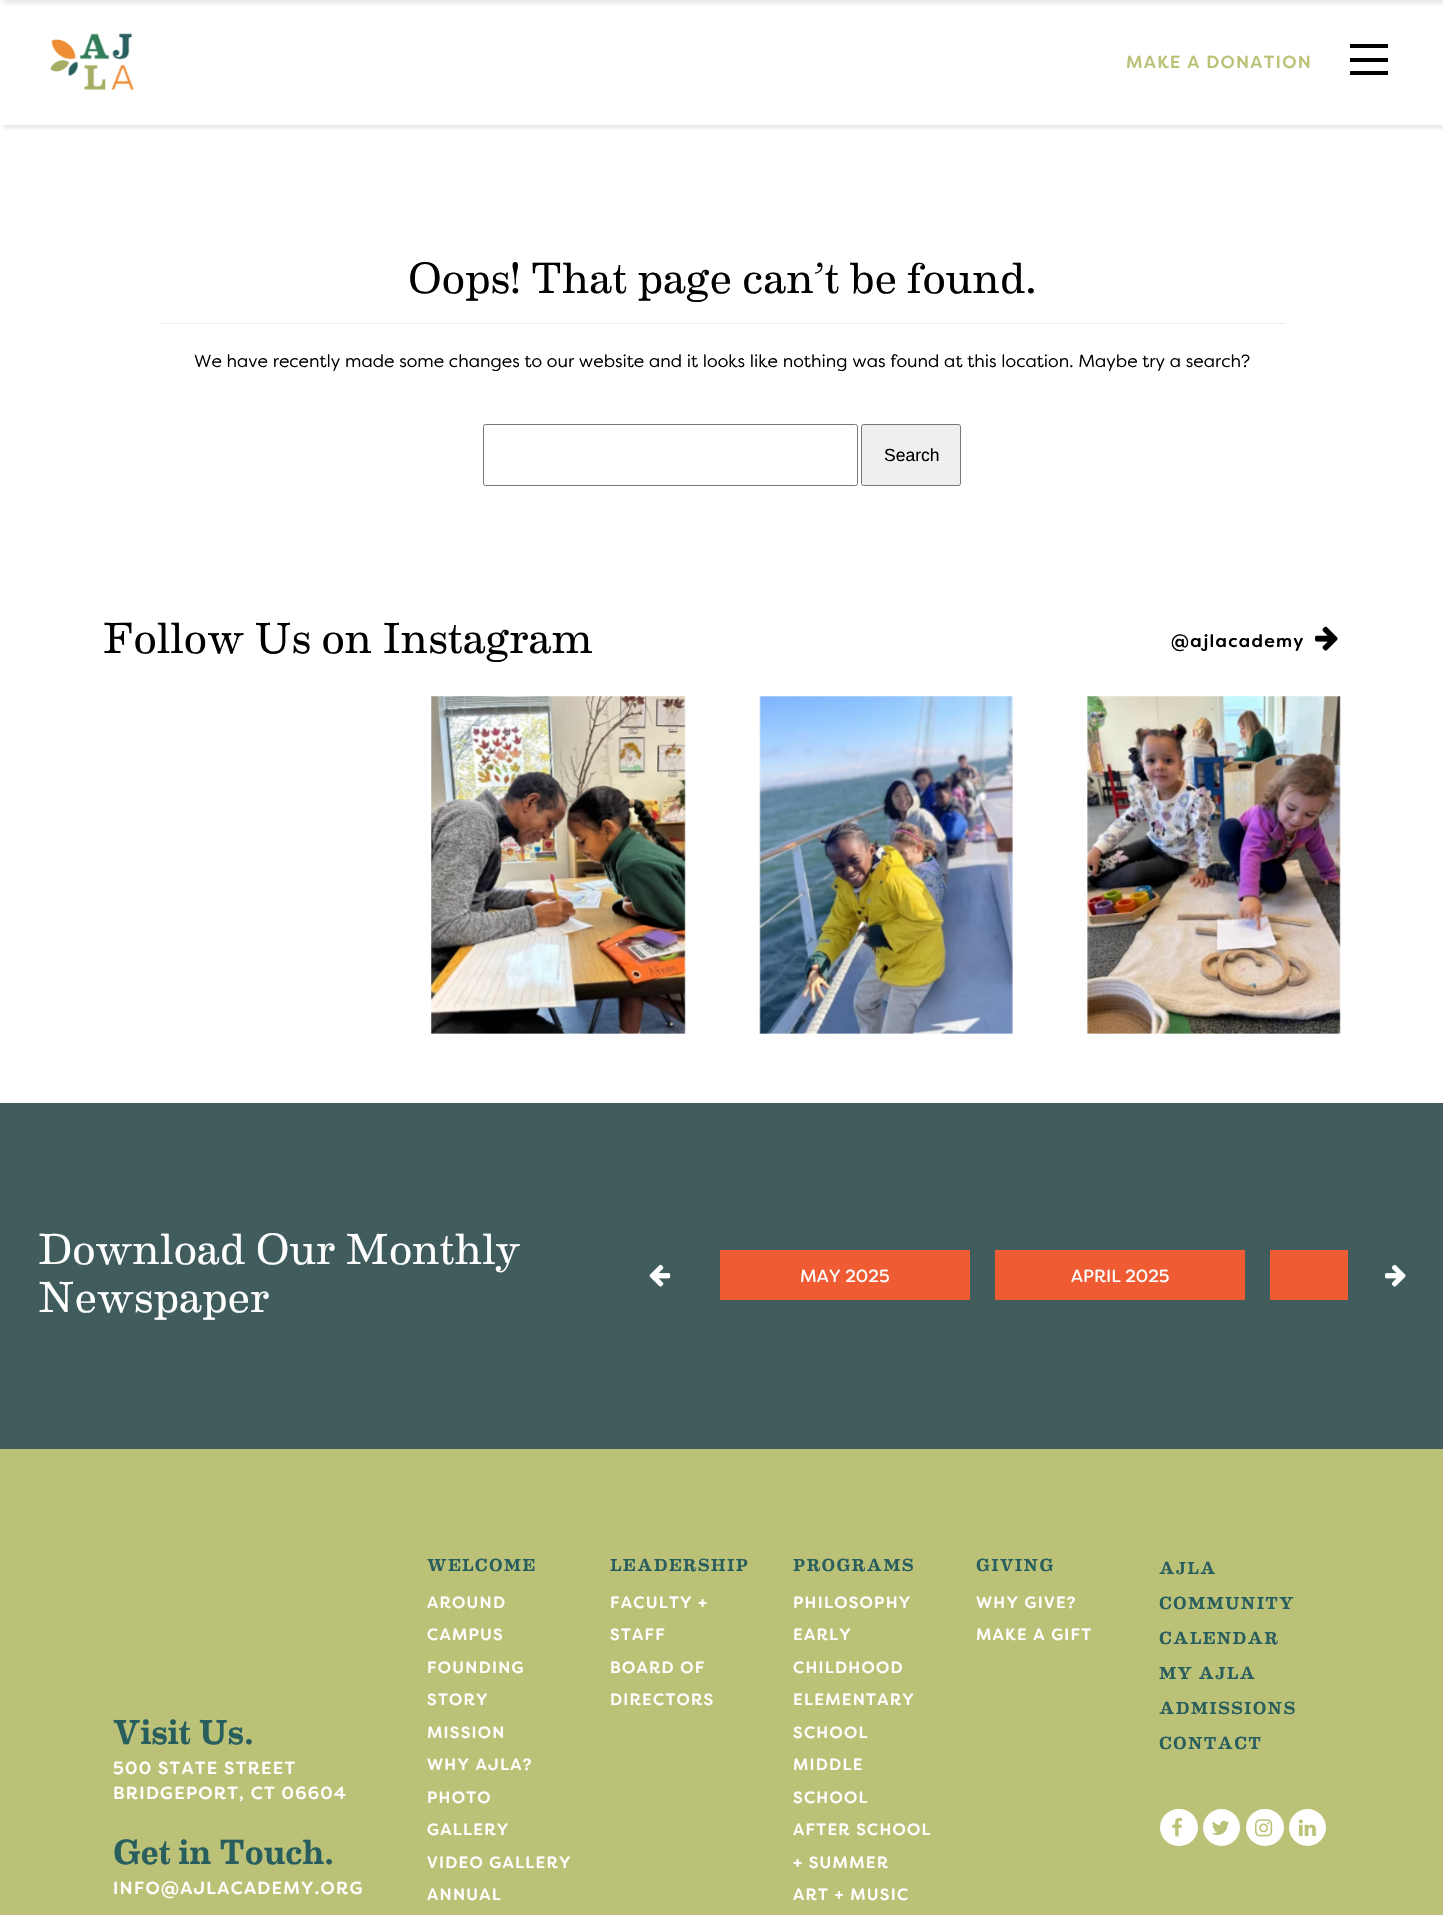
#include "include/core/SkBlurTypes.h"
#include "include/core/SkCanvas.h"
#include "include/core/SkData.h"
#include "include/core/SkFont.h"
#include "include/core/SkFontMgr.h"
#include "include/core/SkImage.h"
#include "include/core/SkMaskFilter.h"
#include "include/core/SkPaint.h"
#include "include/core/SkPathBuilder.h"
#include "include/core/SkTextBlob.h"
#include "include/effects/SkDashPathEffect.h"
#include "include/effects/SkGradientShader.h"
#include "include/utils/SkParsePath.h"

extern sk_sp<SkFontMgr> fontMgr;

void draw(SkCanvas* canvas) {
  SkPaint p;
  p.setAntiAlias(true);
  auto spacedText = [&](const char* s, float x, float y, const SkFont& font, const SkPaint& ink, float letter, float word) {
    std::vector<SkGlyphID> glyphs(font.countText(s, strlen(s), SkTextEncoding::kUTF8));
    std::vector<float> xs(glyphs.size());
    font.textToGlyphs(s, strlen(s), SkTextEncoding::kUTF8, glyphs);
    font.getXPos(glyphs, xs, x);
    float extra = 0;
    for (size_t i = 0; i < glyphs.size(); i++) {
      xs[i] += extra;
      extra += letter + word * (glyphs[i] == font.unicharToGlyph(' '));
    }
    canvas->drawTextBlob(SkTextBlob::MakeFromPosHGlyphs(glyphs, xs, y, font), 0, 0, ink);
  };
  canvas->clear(SK_ColorWHITE);
  p.setColor(SkColorSetARGB(26, 0, 0, 0));
  p.setMaskFilter(SkMaskFilter::MakeBlur(kNormal_SkBlurStyle, 2.5f));
  canvas->drawRect(SkRect::MakeLTRB(3, -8, 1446, 3), p);
  p.setMaskFilter(nullptr);
  canvas->save();
  canvas->clipRect(SkRect::MakeLTRB(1, 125, 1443, 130));
  p.setMaskFilter(SkMaskFilter::MakeBlur(kNormal_SkBlurStyle, 2.5f));
  canvas->drawRect(SkRect::MakeLTRB(3, 3, 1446, 128), p);
  p.setMaskFilter(nullptr);
  canvas->restore();
  canvas->drawImageRect(SkImages::DeferredFromEncodedData(SkData::MakeFromFileName("images/1.png")), SkRect::MakeLTRB(50, 33, 134, 90), SkSamplingOptions());
  p.setColor(SK_ColorBLACK);
  canvas->drawRect(SkRect::MakeLTRB(1350, 44, 1388, 48), p);
  canvas->drawRect(SkRect::MakeLTRB(1350, 58, 1388, 62), p);
  canvas->drawRect(SkRect::MakeLTRB(1350, 71, 1388, 75), p);
  p.setColor(SkColorSetRGB(238, 238, 238));
  canvas->drawRect(SkRect::MakeLTRB(160, 323, 1285, 324), p);
  p.setStyle(SkPaint::kStroke_Style);
  p.setStrokeWidth(1);
  p.setColor(SkColorSetRGB(118, 118, 118));
  canvas->drawRoundRect(SkRect::MakeLTRB(483.5f, 424.5f, 857.5f, 485.5f), 2, 2, p);
  p.setStyle(SkPaint::kFill_Style);
  p.setColor(SkColorSetRGB(239, 239, 239));
  canvas->drawRoundRect(SkRect::MakeLTRB(861.5f, 424.5f, 960.5f, 485.5f), 2, 2, p);
  p.setStyle(SkPaint::kStroke_Style);
  p.setColor(SkColorSetRGB(118, 118, 118));
  canvas->drawRoundRect(SkRect::MakeLTRB(861.5f, 424.5f, 960.5f, 485.5f), 2, 2, p);
  canvas->drawImageRect(SkImages::DeferredFromEncodedData(SkData::MakeFromFileName("images/2.png")), SkRect::MakeLTRB(1315, 626, 1338, 651), SkSamplingOptions());
  canvas->drawImageRect(SkImages::DeferredFromEncodedData(SkData::MakeFromFileName("images/3.png")), SkRect::MakeLTRB(431, 696, 686, 1034), SkSamplingOptions());
  canvas->drawImageRect(SkImages::DeferredFromEncodedData(SkData::MakeFromFileName("images/4.png")), SkRect::MakeLTRB(759, 696, 1013, 1034), SkSamplingOptions());
  canvas->drawImageRect(SkImages::DeferredFromEncodedData(SkData::MakeFromFileName("images/5.png")), SkRect::MakeLTRB(1087, 696, 1341, 1034), SkSamplingOptions());
  p.setStyle(SkPaint::kFill_Style);
  p.setColor(SkColorSetRGB(64, 92, 93));
  canvas->drawRect(SkRect::MakeLTRB(0, 1103, 1443, 1449), p);
  canvas->drawImageRect(SkImages::DeferredFromEncodedData(SkData::MakeFromFileName("images/6.png")), SkRect::MakeLTRB(649, 1264, 671, 1287), SkSamplingOptions());
  p.setColor(SkColorSetRGB(239, 92, 51));
  canvas->drawRect(SkRect::MakeLTRB(720, 1250, 970, 1300), p);
  canvas->drawRect(SkRect::MakeLTRB(995, 1250, 1245, 1300), p);
  canvas->drawRect(SkRect::MakeLTRB(1270, 1250, 1348, 1300), p);
  canvas->drawImageRect(SkImages::DeferredFromEncodedData(SkData::MakeFromFileName("images/7.png")), SkRect::MakeLTRB(1385, 1264, 1406, 1287), SkSamplingOptions());
  p.setColor(SkColorSetRGB(188, 193, 120));
  canvas->drawRect(SkRect::MakeLTRB(0, 1449, 1443, 1915), p);
  p.setColor(SK_ColorWHITE);
  canvas->drawRoundRect(SkRect::MakeLTRB(1160, 1809, 1198, 1846), 18.5f, 18.5f, p);
  canvas->drawImageRect(SkImages::DeferredFromEncodedData(SkData::MakeFromFileName("images/8.png")), SkRect::MakeLTRB(1172, 1817, 1182, 1837), SkSamplingOptions());
  canvas->drawCircle(1221.5f, 1827.5f, 18.5f, p);
  canvas->drawImageRect(SkImages::DeferredFromEncodedData(SkData::MakeFromFileName("images/9.png")), SkRect::MakeLTRB(1212, 1820, 1230, 1835), SkSamplingOptions());
  canvas->drawRoundRect(SkRect::MakeLTRB(1246, 1809, 1284, 1846), 18.5f, 18.5f, p);
  canvas->drawImageRect(SkImages::DeferredFromEncodedData(SkData::MakeFromFileName("images/10.png")), SkRect::MakeLTRB(1255, 1819, 1273, 1837), SkSamplingOptions());
  canvas->drawCircle(1307.5f, 1827.5f, 18.5f, p);
  canvas->drawImageRect(SkImages::DeferredFromEncodedData(SkData::MakeFromFileName("images/11.png")), SkRect::MakeLTRB(1298, 1819, 1316, 1836), SkSamplingOptions());
  SkFont font1(fontMgr->matchFamilyStyle("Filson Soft", SkFontStyle(500, SkFontStyle::kNormal_Width, SkFontStyle::kUpright_Slant)), 17.5f);
  font1.setSubpixel(true);
  p.setColor(SkColorSetRGB(188, 193, 120));
  spacedText("MAKE A DONATION", 1126, 68, font1, p, 1.25f, 0);
  SkFont font2(fontMgr->matchFamilyStyle("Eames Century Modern", SkFontStyle::Normal()), 43.75f);
  font2.setSubpixel(true);
  p.setColor(SK_ColorBLACK);
  canvas->drawString("Oops! That page can’t be found.", 408, 293, font2, p);
  SkFont font3(fontMgr->matchFamilyStyle("Filson Soft", SkFontStyle::Normal()), 17.5f);
  font3.setSubpixel(true);
  canvas->drawString("We have recently made some changes to our website and it looks like nothing was found at this location. Maybe try a search?", 194, 367, font3, p);
  SkFont font4(fontMgr->matchFamilyStyle("Liberation Sans", SkFontStyle::Normal()), 17.5f);
  font4.setSubpixel(true);
  canvas->drawString("Search", 884, 461, font4, p);
  canvas->drawString("Follow Us on Instagram", 103, 653, font2, p);
  spacedText("@ajlacademy", 1171, 647, font1, p, 1.25f, 0);
  p.setColor(SK_ColorWHITE);
  canvas->drawString("Download Our Monthly", 38, 1264, font2, p);
  canvas->drawString("Newspaper", 38, 1312, font2, p);
  SkFont font5(fontMgr->matchFamilyStyle("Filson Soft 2", SkFontStyle::Normal()), 17.5f);
  font5.setSubpixel(true);
  canvas->drawString("MAY 2025", 800, 1282, font5, p);
  canvas->drawString("APRIL 2025", 1071, 1282, font5, p);
  SkFont font6(fontMgr->matchFamilyStyle("Eames Century Modern", SkFontStyle(500, SkFontStyle::kNormal_Width, SkFontStyle::kUpright_Slant)), 17.5f);
  font6.setSubpixel(true);
  p.setColor(SkColorSetRGB(41, 94, 94));
  spacedText("WELCOME", 427, 1571, font6, p, 1.25f, 0);
  SkFont font7(fontMgr->matchFamilyStyle("Filson Soft", SkFontStyle(500, SkFontStyle::kNormal_Width, SkFontStyle::kUpright_Slant)), 16.25f);
  font7.setSubpixel(true);
  p.setColor(SK_ColorWHITE);
  spacedText("AROUND", 427, 1608, font7, p, 1.25f, 0);
  spacedText("CAMPUS", 427, 1640, font7, p, 1.25f, 0);
  spacedText("FOUNDING", 427, 1673, font7, p, 1.25f, 0);
  spacedText("STORY", 427, 1705, font7, p, 1.25f, 0);
  spacedText("MISSION", 427, 1738, font7, p, 1.25f, 0);
  spacedText("WHY AJLA?", 427, 1770, font7, p, 1.25f, 0);
  spacedText("PHOTO", 427, 1803, font7, p, 1.25f, 0);
  spacedText("GALLERY", 427, 1835, font7, p, 1.25f, 0);
  spacedText("VIDEO GALLERY", 427, 1868, font7, p, 1.25f, 0);
  spacedText("ANNUAL", 427, 1900, font7, p, 1.25f, 0);
  p.setColor(SkColorSetRGB(41, 94, 94));
  spacedText("LEADERSHIP", 610, 1571, font6, p, 1.25f, 0);
  p.setColor(SK_ColorWHITE);
  spacedText("FACULTY +", 610, 1608, font7, p, 1.25f, 0);
  spacedText("STAFF", 610, 1640, font7, p, 1.25f, 0);
  spacedText("BOARD OF", 610, 1673, font7, p, 1.25f, 0);
  spacedText("DIRECTORS", 610, 1705, font7, p, 1.25f, 0);
  p.setColor(SkColorSetRGB(41, 94, 94));
  spacedText("PROGRAMS", 793, 1571, font6, p, 1.25f, 0);
  p.setColor(SK_ColorWHITE);
  spacedText("PHILOSOPHY", 793, 1608, font7, p, 1.25f, 0);
  spacedText("EARLY", 793, 1640, font7, p, 1.25f, 0);
  spacedText("CHILDHOOD", 793, 1673, font7, p, 1.25f, 0);
  spacedText("ELEMENTARY", 793, 1705, font7, p, 1.25f, 0);
  spacedText("SCHOOL", 793, 1738, font7, p, 1.25f, 0);
  spacedText("MIDDLE", 793, 1770, font7, p, 1.25f, 0);
  spacedText("SCHOOL", 793, 1803, font7, p, 1.25f, 0);
  spacedText("AFTER SCHOOL", 793, 1835, font7, p, 1.25f, 0);
  spacedText("+ SUMMER", 793, 1868, font7, p, 1.25f, 0);
  spacedText("ART + MUSIC", 793, 1900, font7, p, 1.25f, 0);
  p.setColor(SkColorSetRGB(41, 94, 94));
  spacedText("GIVING", 976, 1571, font6, p, 1.25f, 0);
  p.setColor(SK_ColorWHITE);
  spacedText("WHY GIVE?", 976, 1608, font7, p, 1.25f, 0);
  spacedText("MAKE A GIFT", 976, 1640, font7, p, 1.25f, 0);
  p.setColor(SkColorSetRGB(41, 94, 94));
  spacedText("AJLA", 1159, 1574, font6, p, 1.25f, 0);
  spacedText("COMMUNITY", 1159, 1609, font6, p, 1.25f, 0);
  spacedText("CALENDAR", 1159, 1644, font6, p, 1.25f, 0);
  spacedText("MY AJLA", 1159, 1679, font6, p, 1.25f, 0);
  spacedText("ADMISSIONS", 1159, 1714, font6, p, 1.25f, 0);
  spacedText("CONTACT", 1159, 1749, font6, p, 1.25f, 0);
  SkFont font8(fontMgr->matchFamilyStyle("Eames Century Modern", SkFontStyle(500, SkFontStyle::kNormal_Width, SkFontStyle::kUpright_Slant)), 35);
  font8.setSubpixel(true);
  canvas->drawString("Visit Us.", 113, 1744, font8, p);
  p.setColor(SK_ColorWHITE);
  spacedText("500 STATE STREET", 113, 1774, font1, p, 1.25f, 0);
  spacedText("BRIDGEPORT, CT 06604", 113, 1799, font1, p, 1.25f, 0);
  p.setColor(SkColorSetRGB(41, 94, 94));
  canvas->drawString("Get in Touch.", 113, 1864, font8, p);
  p.setColor(SK_ColorWHITE);
  spacedText("INFO@AJLACADEMY.ORG", 113, 1894, font1, p, 1.25f, 0);
}
